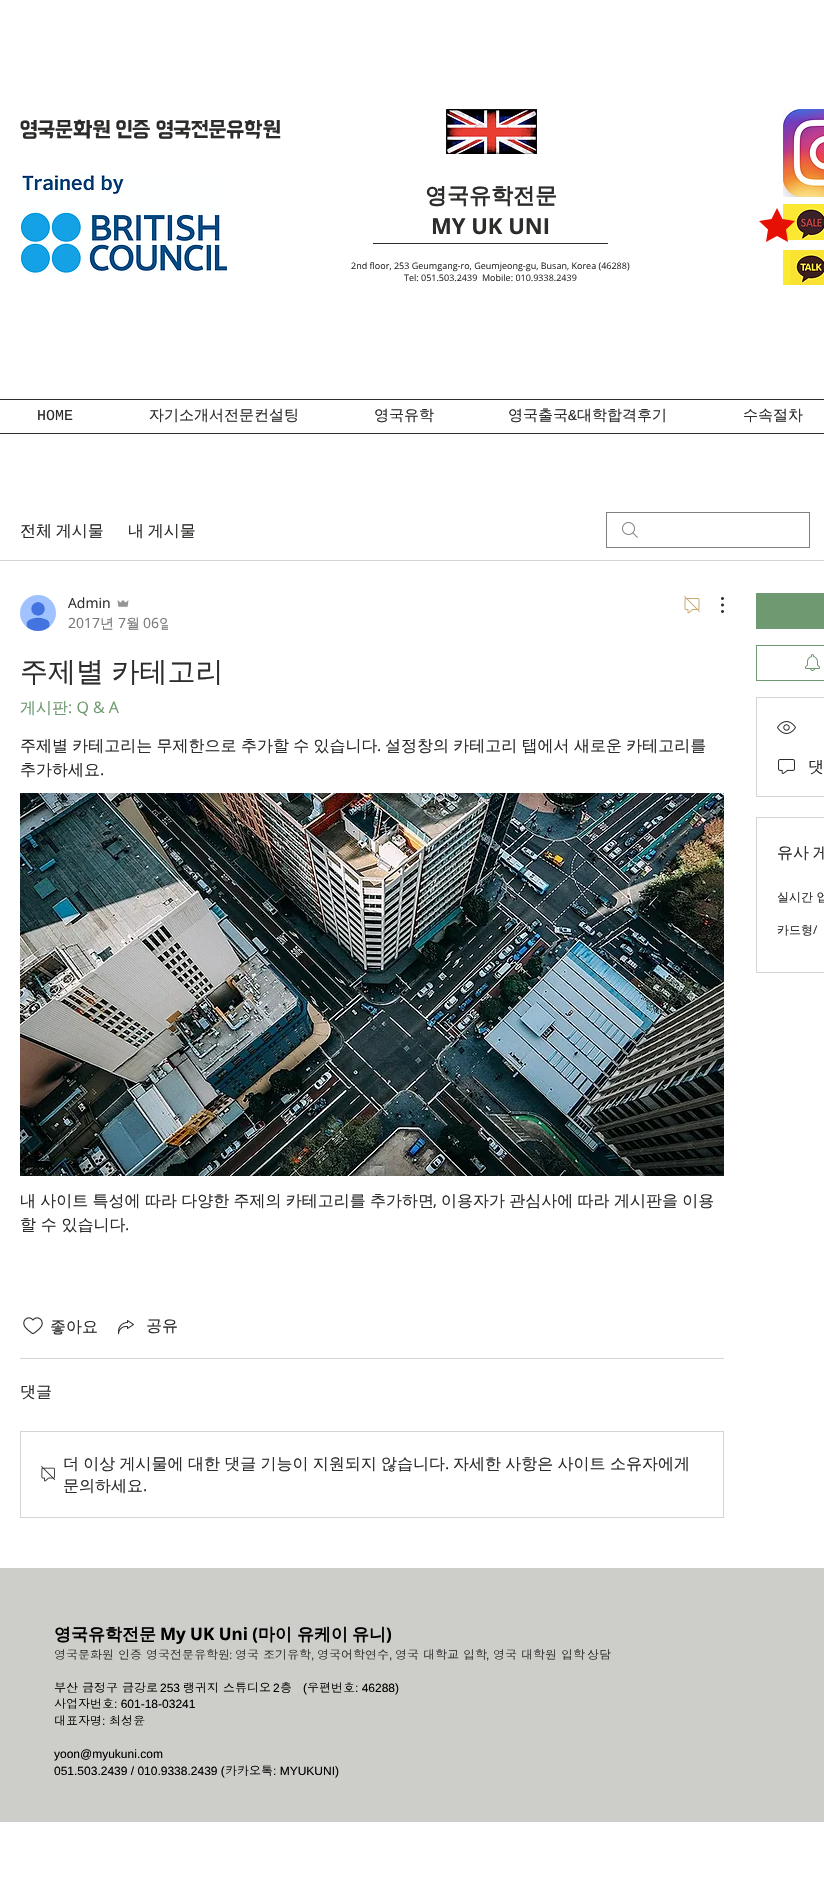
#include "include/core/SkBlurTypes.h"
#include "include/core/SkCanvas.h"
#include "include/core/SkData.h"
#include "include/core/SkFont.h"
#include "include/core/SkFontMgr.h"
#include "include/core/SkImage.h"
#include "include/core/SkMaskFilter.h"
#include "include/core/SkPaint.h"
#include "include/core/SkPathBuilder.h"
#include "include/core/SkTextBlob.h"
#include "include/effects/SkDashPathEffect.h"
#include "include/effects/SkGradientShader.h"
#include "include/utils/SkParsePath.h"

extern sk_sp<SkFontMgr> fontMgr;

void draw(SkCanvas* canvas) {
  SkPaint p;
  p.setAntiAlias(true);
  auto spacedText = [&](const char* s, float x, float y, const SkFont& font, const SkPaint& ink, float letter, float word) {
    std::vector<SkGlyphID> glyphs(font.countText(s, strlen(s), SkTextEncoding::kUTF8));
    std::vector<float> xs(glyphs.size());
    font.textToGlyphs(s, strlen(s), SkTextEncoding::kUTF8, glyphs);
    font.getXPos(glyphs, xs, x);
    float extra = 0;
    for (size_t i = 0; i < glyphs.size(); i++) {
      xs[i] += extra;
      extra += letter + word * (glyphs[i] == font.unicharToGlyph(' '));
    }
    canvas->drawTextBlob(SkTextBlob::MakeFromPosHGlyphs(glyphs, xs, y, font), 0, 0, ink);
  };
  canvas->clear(SK_ColorWHITE);
  canvas->drawImageRect(SkImages::DeferredFromEncodedData(SkData::MakeFromFileName("images/1.png")), SkRect::MakeLTRB(446, 109, 537, 154), SkSamplingOptions());
  canvas->drawImageRect(SkImages::DeferredFromEncodedData(SkData::MakeFromFileName("images/2.png")), SkRect::MakeLTRB(783, 109, 824, 197), SkSamplingOptions());
  canvas->drawImageRect(SkImages::DeferredFromEncodedData(SkData::MakeFromFileName("images/3.png")), SkRect::MakeLTRB(20, 173, 227, 275), SkSamplingOptions());
  canvas->drawImageRect(SkImages::DeferredFromEncodedData(SkData::MakeFromFileName("images/4.png")), SkRect::MakeLTRB(783, 204, 824, 240), SkSamplingOptions());
  p.setColor(SkColorSetRGB(230, 16, 5));
  canvas->drawPath(SkPathBuilder().moveTo(777, 208).lineTo(782.5f, 219).lineTo(795, 221).lineTo(786, 229.5f).lineTo(788, 242).lineTo(777, 236).lineTo(766, 242).lineTo(768, 229.5f).lineTo(759, 221).lineTo(771.5f, 219).close().detach(), p);
  canvas->drawImageRect(SkImages::DeferredFromEncodedData(SkData::MakeFromFileName("images/5.png")), SkRect::MakeLTRB(783, 250, 824, 285), SkSamplingOptions());
  p.setColor(SkColorSetRGB(44, 44, 43));
  canvas->drawRect(SkRect::MakeLTRB(373, 243, 608, 244), p);
  canvas->drawRect(SkRect::MakeLTRB(0, 399, 824, 400), p);
  canvas->drawRect(SkRect::MakeLTRB(0, 433, 824, 434), p);
  p.setColor(SkColorSetRGB(213, 213, 213));
  canvas->drawRect(SkRect::MakeLTRB(0, 560, 824, 561), p);
  canvas->drawImageRect(SkImages::DeferredFromEncodedData(SkData::MakeFromFileName("images/6.png")), SkRect::MakeLTRB(622, 522, 638, 538), SkSamplingOptions());
  p.setStyle(SkPaint::kStroke_Style);
  p.setStrokeWidth(1);
  p.setColor(SkColorSetRGB(128, 128, 128));
  canvas->drawRect(SkRect::MakeLTRB(606.5f, 512.5f, 809.5f, 547.5f), p);
  canvas->drawImageRect(SkImages::DeferredFromEncodedData(SkData::MakeFromFileName("images/7.png")), SkRect::MakeLTRB(20, 595, 56, 631), SkSamplingOptions());
  canvas->drawImageRect(SkImages::DeferredFromEncodedData(SkData::MakeFromFileName("images/8.png")), SkRect::MakeLTRB(117, 600, 129, 607), SkSamplingOptions());
  canvas->drawImageRect(SkImages::DeferredFromEncodedData(SkData::MakeFromFileName("images/9.png")), SkRect::MakeLTRB(684, 596, 700, 614), SkSamplingOptions());
  canvas->drawImageRect(SkImages::DeferredFromEncodedData(SkData::MakeFromFileName("images/10.png")), SkRect::MakeLTRB(721, 597, 724, 613), SkSamplingOptions());
  canvas->drawImageRect(SkImages::DeferredFromEncodedData(SkData::MakeFromFileName("images/11.png")), SkRect::MakeLTRB(20, 793, 724, 1176), SkSamplingOptions());
  canvas->drawImageRect(SkImages::DeferredFromEncodedData(SkData::MakeFromFileName("images/12.png")), SkRect::MakeLTRB(23, 1317, 43, 1335), SkSamplingOptions());
  canvas->drawImageRect(SkImages::DeferredFromEncodedData(SkData::MakeFromFileName("images/13.png")), SkRect::MakeLTRB(118, 1320, 134, 1334), SkSamplingOptions());
  p.setStyle(SkPaint::kFill_Style);
  p.setColor(SkColorSetRGB(213, 213, 213));
  canvas->drawRect(SkRect::MakeLTRB(20, 1358, 724, 1359), p);
  p.setStyle(SkPaint::kStroke_Style);
  canvas->drawRect(SkRect::MakeLTRB(20.5f, 1431.5f, 723.5f, 1517.5f), p);
  canvas->drawImageRect(SkImages::DeferredFromEncodedData(SkData::MakeFromFileName("images/14.png")), SkRect::MakeLTRB(41, 1466, 55, 1482), SkSamplingOptions());
  p.setStyle(SkPaint::kFill_Style);
  p.setColor(SkColorSetRGB(111, 153, 113));
  canvas->drawRect(SkRect::MakeLTRB(756, 593, 824, 629), p);
  p.setStyle(SkPaint::kStroke_Style);
  canvas->drawRect(SkRect::MakeLTRB(756.5f, 645.5f, 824.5f, 680.5f), p);
  canvas->drawImageRect(SkImages::DeferredFromEncodedData(SkData::MakeFromFileName("images/15.png")), SkRect::MakeLTRB(805, 654, 820, 671), SkSamplingOptions());
  p.setColor(SkColorSetRGB(213, 213, 213));
  canvas->drawRect(SkRect::MakeLTRB(756.5f, 697.5f, 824.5f, 796.5f), p);
  canvas->drawImageRect(SkImages::DeferredFromEncodedData(SkData::MakeFromFileName("images/16.png")), SkRect::MakeLTRB(777, 721, 796, 734), SkSamplingOptions());
  canvas->drawImageRect(SkImages::DeferredFromEncodedData(SkData::MakeFromFileName("images/17.png")), SkRect::MakeLTRB(778, 759, 795, 774), SkSamplingOptions());
  canvas->drawRect(SkRect::MakeLTRB(756.5f, 817.5f, 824.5f, 972.5f), p);
  p.setStyle(SkPaint::kFill_Style);
  p.setColor(SkColorSetRGB(205, 205, 201));
  canvas->drawRect(SkRect::MakeLTRB(0, 1568, 824, 1822), p);
  SkFont font1(fontMgr->matchFamilyStyle("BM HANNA", SkFontStyle::Normal()), 22);
  font1.setSubpixel(true);
  p.setColor(SkColorSetRGB(44, 44, 43));
  canvas->drawString("영국문화원 인증 영국전문유학원", 20, 136, font1, p);
  SkFont font2(fontMgr->matchFamilyStyle("WenQuanYi Zen Hei", SkFontStyle::Bold()), 22);
  font2.setSubpixel(true);
  canvas->drawString("영국유학전문", 425, 203, font2, p);
  SkFont font3(fontMgr->matchFamilyStyle("Open Sans", SkFontStyle::Bold()), 22);
  font3.setSubpixel(true);
  canvas->drawString("MY UK UNI", 431, 234, font3, p);
  SkFont font4(fontMgr->matchFamilyStyle("Open Sans", SkFontStyle::Normal()), 9);
  font4.setSubpixel(true);
  canvas->drawString("2nd floor, 253 Geumgang-ro, Geumjeong-gu, Busan, Korea (46288)", 351, 269, font4, p);
  canvas->drawString("Tel: 051.503.2439  Mobile: 010.9338.2439", 404, 281, font4, p);
  SkFont font5(fontMgr->matchFamilyStyle("Liberation Mono", SkFontStyle::Normal()), 15);
  font5.setSubpixel(true);
  canvas->drawString("HOME", 37, 420, font5, p);
  SkFont font6(fontMgr->matchFamilyStyle("WenQuanYi Zen Hei", SkFontStyle(500, SkFontStyle::kNormal_Width, SkFontStyle::kUpright_Slant)), 15);
  font6.setSubpixel(true);
  canvas->drawString("자기소개서전문컨설팅", 149, 420, font6, p);
  canvas->drawString("영국유학", 374, 420, font6, p);
  canvas->drawString("영국출국", 508, 420, font6, p);
  canvas->drawString("&", 568, 420, font5, p);
  canvas->drawString("대학합격후기", 577, 420, font6, p);
  canvas->drawString("수속절차", 743, 420, font6, p);
  SkFont font7(fontMgr->matchFamilyStyle("WenQuanYi Zen Hei", SkFontStyle(500, SkFontStyle::kNormal_Width, SkFontStyle::kUpright_Slant)), 16);
  font7.setSubpixel(true);
  spacedText("전체 게시물", 20, 536, font7, p, 0, -1);
  spacedText("내 게시물", 128, 536, font7, p, 0, -1);
  SkFont font8(fontMgr->matchFamilyStyle("Open Sans", SkFontStyle::Normal()), 14);
  font8.setSubpixel(true);
  canvas->drawString("Admin", 68, 608, font8, p);
  p.setColor(SkColorSetRGB(120, 120, 119));
  canvas->drawString("2017", 68, 628, font8, p);
  SkFont font9(fontMgr->matchFamilyStyle("WenQuanYi Zen Hei", SkFontStyle(500, SkFontStyle::kNormal_Width, SkFontStyle::kUpright_Slant)), 14);
  font9.setSubpixel(true);
  canvas->drawString("년", 100, 628, font9, p);
  canvas->drawString("7", 118, 628, font8, p);
  canvas->drawString("월", 126, 628, font9, p);
  canvas->drawString("06", 143, 628, font8, p);
  canvas->save();
  canvas->clipRect(SkRect::MakeLTRB(56, 593, 168, 633));
  canvas->drawString("일", 159, 628, font9, p);
  canvas->restore();
  SkFont font10(fontMgr->matchFamilyStyle("WenQuanYi Zen Hei", SkFontStyle(500, SkFontStyle::kNormal_Width, SkFontStyle::kUpright_Slant)), 28);
  font10.setSubpixel(true);
  p.setColor(SkColorSetRGB(44, 44, 43));
  spacedText("주제별 카테고리", 20, 681, font10, p, 0, -1);
  p.setColor(SkColorSetRGB(111, 153, 113));
  canvas->drawString("게시판", 20, 713, font7, p);
  SkFont font11(fontMgr->matchFamilyStyle("Open Sans", SkFontStyle::Normal()), 16);
  font11.setSubpixel(true);
  canvas->drawString(": Q & A", 68, 713, font11, p);
  p.setColor(SkColorSetRGB(44, 44, 43));
  spacedText("주제별 카테고리는 무제한으로 추가할 수 있습니다", 20, 751, font7, p, 0, -0.5f);
  canvas->drawString(".", 377, 751, font11, p);
  spacedText("설정창의 카테고리 탭에서 새로운 카테고리를", 385, 751, font7, p, 0, -0.5f);
  canvas->drawString("추가하세요", 20, 775, font7, p);
  canvas->drawString(".", 100, 775, font11, p);
  spacedText("내 사이트 특성에 따라 다양한 주제의 카테고리를 추가하면", 20, 1206, font7, p, 0, -0.5f);
  canvas->drawString(",", 433, 1206, font11, p);
  spacedText("이용자가 관심사에 따라 게시판을 이용", 441, 1206, font7, p, 0, -0.5f);
  canvas->drawString("할 수 있습니다", 20, 1230, font7, p);
  canvas->drawString(".", 125, 1230, font11, p);
  canvas->drawString("좋아요", 50, 1332, font7, p);
  canvas->drawString("공유", 146, 1331, font7, p);
  canvas->drawString("댓글", 20, 1397, font7, p);
  spacedText("더 이상 게시물에 대한 댓글 기능이 지원되지 않습니다", 63, 1469, font7, p, 0, -0.5f);
  canvas->drawString(".", 445, 1469, font11, p);
  spacedText("자세한 사항은 사이트 소유자에게", 453, 1469, font7, p, 0, -0.5f);
  canvas->drawString("문의하세요", 63, 1491, font7, p);
  canvas->drawString(".", 143, 1491, font11, p);
  canvas->drawString("댓", 808, 772, font7, p);
  spacedText("유사 게", 777, 858, font7, p, 0, -1);
  SkFont font12(fontMgr->matchFamilyStyle("WenQuanYi Zen Hei", SkFontStyle(500, SkFontStyle::kNormal_Width, SkFontStyle::kUpright_Slant)), 12);
  font12.setSubpixel(true);
  canvas->drawString("실시간 업", 777, 901, font12, p);
  canvas->drawString("카드형", 777, 934, font12, p);
  SkFont font13(fontMgr->matchFamilyStyle("Open Sans", SkFontStyle::Normal()), 12);
  font13.setSubpixel(true);
  canvas->drawString("/", 813, 934, font13, p);
  SkFont font14(fontMgr->matchFamilyStyle("WenQuanYi Zen Hei", SkFontStyle::Bold()), 17);
  font14.setSubpixel(true);
  p.setColor(SK_ColorBLACK);
  canvas->drawString("영국유학전문", 54, 1640, font14, p);
  SkFont font15(fontMgr->matchFamilyStyle("Open Sans", SkFontStyle::Bold()), 17);
  font15.setSubpixel(true);
  canvas->drawString("My UK Uni (", 160, 1640, font15, p);
  canvas->drawString("마이", 258, 1640, font14, p);
  canvas->drawString("유케이", 297, 1640, font14, p);
  canvas->drawString("유니", 352, 1640, font14, p);
  canvas->drawString(")", 386, 1640, font15, p);
  SkFont font16(fontMgr->matchFamilyStyle("Dotum", SkFontStyle::Normal()), 12);
  font16.setSubpixel(true);
  p.setColor(SkColorSetRGB(44, 44, 43));
  canvas->drawString("영국문화원 인증 영국전문유학원", 54, 1659, font16, p);
  SkFont font17(fontMgr->matchFamilyStyle("Liberation Sans", SkFontStyle::Normal()), 12);
  font17.setSubpixel(true);
  canvas->drawString(":", 229, 1659, font17, p);
  canvas->drawString("영국 조기유학", 235, 1659, font16, p);
  canvas->drawString(",", 311, 1659, font17, p);
  canvas->drawString("영국어학연수", 317, 1659, font16, p);
  canvas->drawString(",", 389, 1659, font17, p);
  canvas->drawString("영국 대학교 입학", 395, 1659, font16, p);
  canvas->drawString(",", 486, 1659, font17, p);
  canvas->drawString("영국 대학원 입학", 493, 1659, font16, p);
  canvas->drawString("상담", 587, 1659, font16, p);
  p.setColor(SK_ColorBLACK);
  canvas->drawString("부산 금정구 금강로", 54, 1692, font16, p);
  canvas->drawString("253", 160, 1692, font17, p);
  canvas->drawString("랭귀지 스튜디오", 183, 1692, font16, p);
  canvas->drawString("2", 273, 1692, font17, p);
  canvas->drawString("층", 280, 1692, font16, p);
  canvas->drawString("(", 303, 1692, font17, p);
  canvas->drawString("우편번호", 307, 1692, font16, p);
  canvas->drawString(": 46288)", 355, 1692, font17, p);
  canvas->drawString("사업자번호", 54, 1708, font16, p);
  canvas->drawString(": 601-18-03241", 114, 1708, font17, p);
  canvas->drawString("대표자명", 54, 1725, font16, p);
  canvas->drawString(":", 102, 1725, font17, p);
  canvas->drawString("최성윤", 109, 1725, font16, p);
  canvas->drawString("yoon@myukuni.com", 54, 1758, font17, p);
  canvas->drawString("051.503.2439 / 010.9338.2439 (", 54, 1775, font17, p);
  canvas->drawString("카카오톡", 225, 1775, font16, p);
  canvas->drawString(": MYUKUNI)", 273, 1775, font17, p);
}
